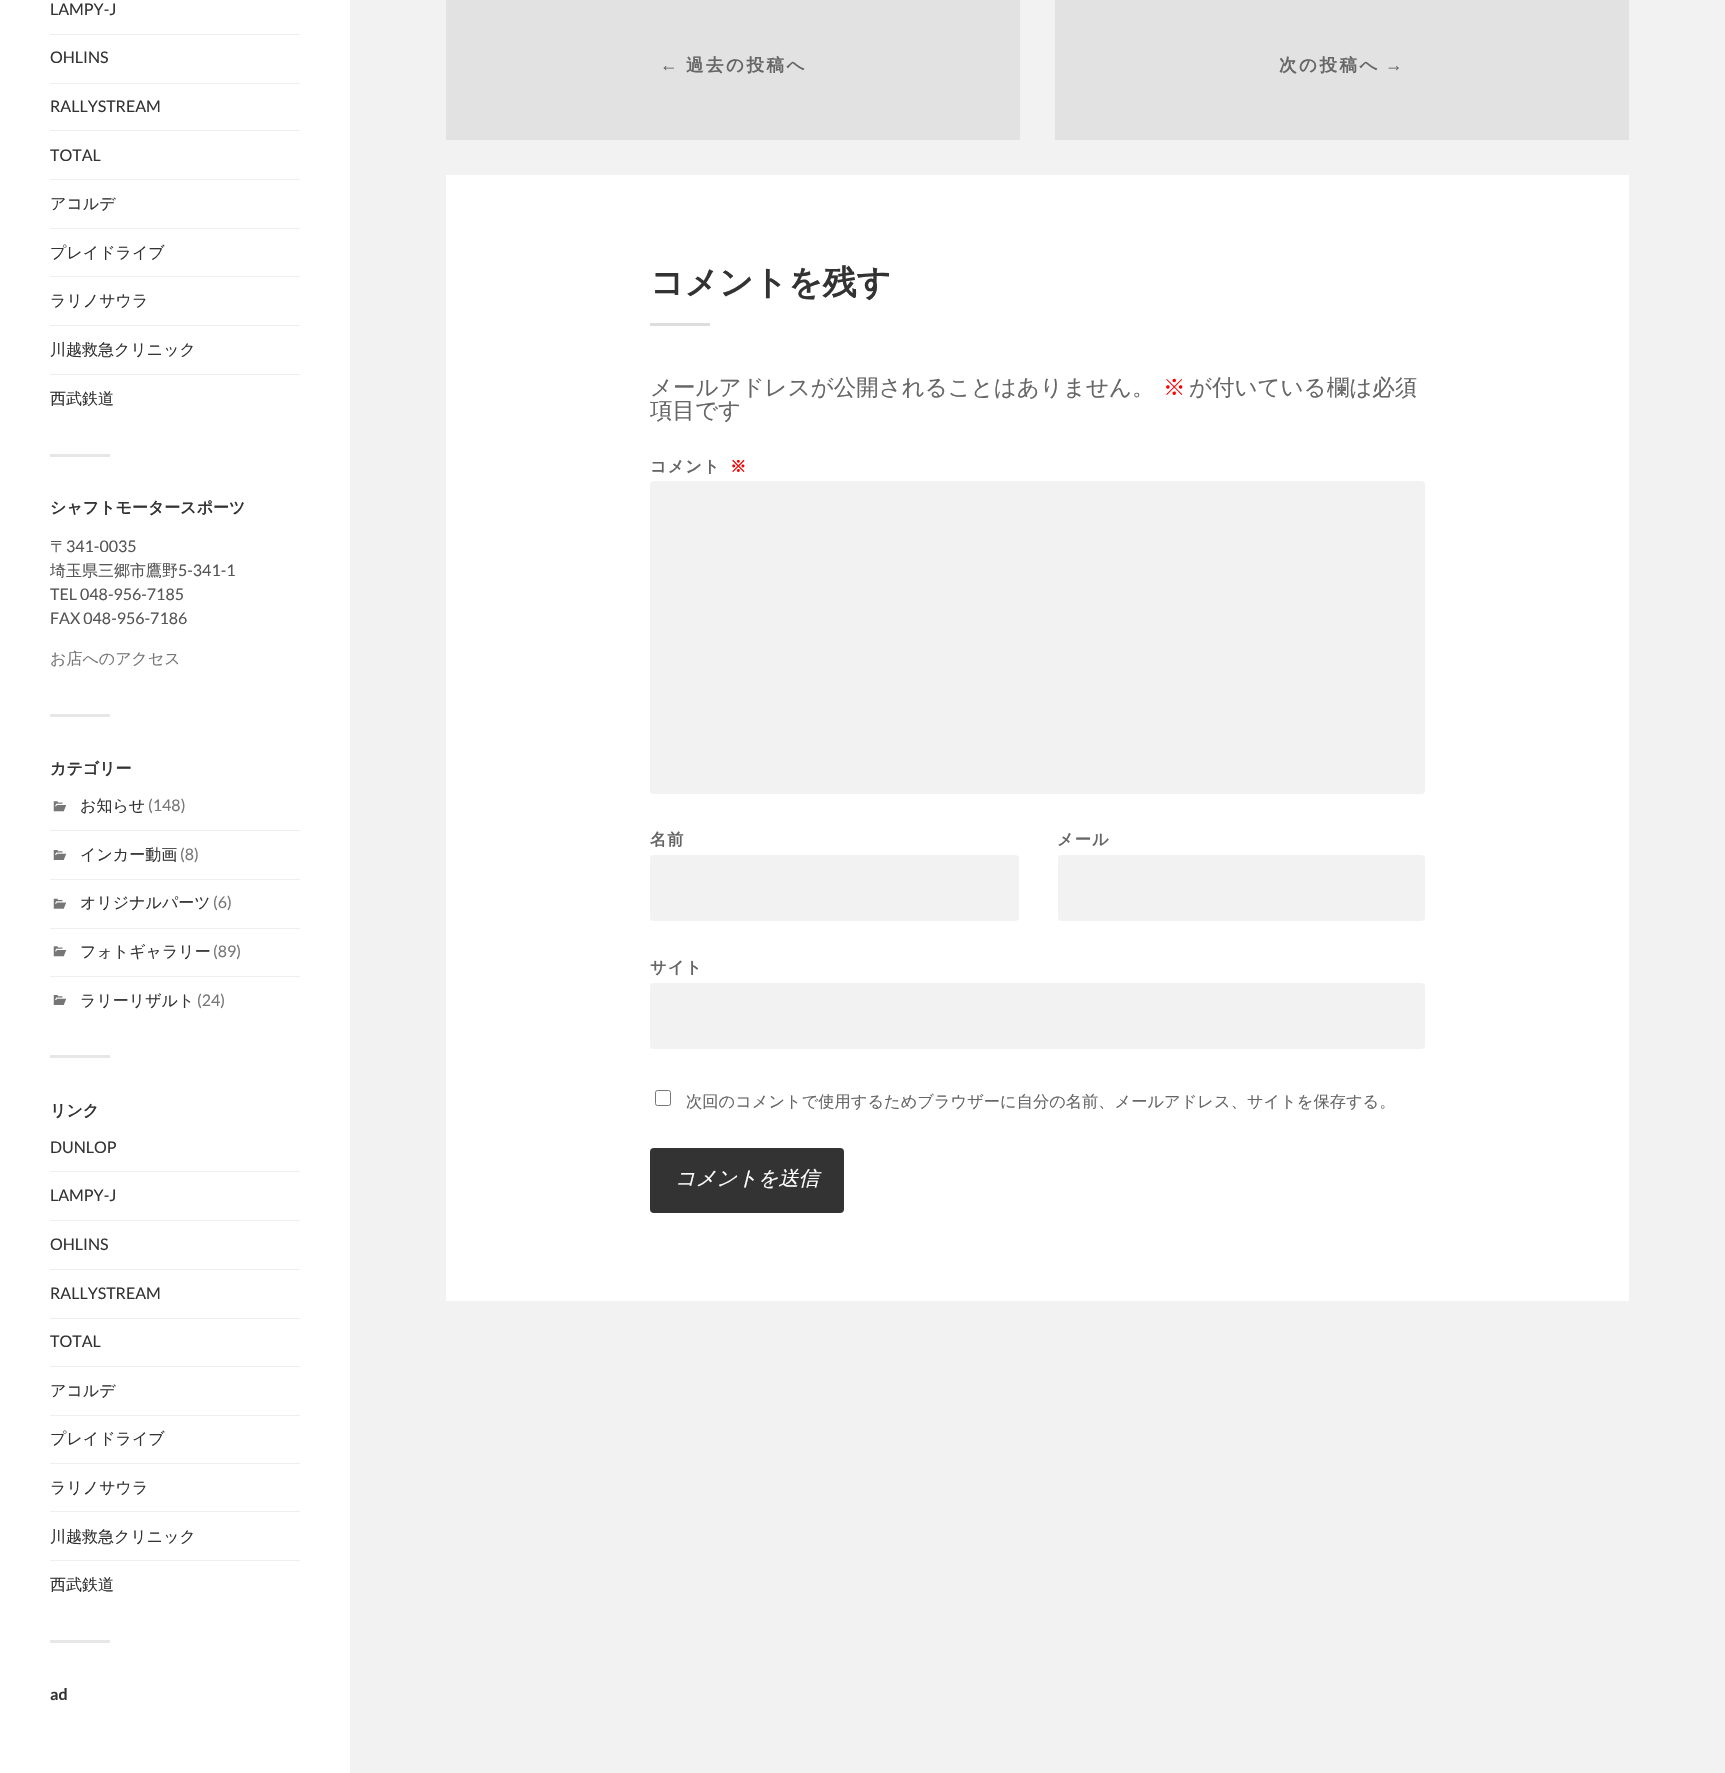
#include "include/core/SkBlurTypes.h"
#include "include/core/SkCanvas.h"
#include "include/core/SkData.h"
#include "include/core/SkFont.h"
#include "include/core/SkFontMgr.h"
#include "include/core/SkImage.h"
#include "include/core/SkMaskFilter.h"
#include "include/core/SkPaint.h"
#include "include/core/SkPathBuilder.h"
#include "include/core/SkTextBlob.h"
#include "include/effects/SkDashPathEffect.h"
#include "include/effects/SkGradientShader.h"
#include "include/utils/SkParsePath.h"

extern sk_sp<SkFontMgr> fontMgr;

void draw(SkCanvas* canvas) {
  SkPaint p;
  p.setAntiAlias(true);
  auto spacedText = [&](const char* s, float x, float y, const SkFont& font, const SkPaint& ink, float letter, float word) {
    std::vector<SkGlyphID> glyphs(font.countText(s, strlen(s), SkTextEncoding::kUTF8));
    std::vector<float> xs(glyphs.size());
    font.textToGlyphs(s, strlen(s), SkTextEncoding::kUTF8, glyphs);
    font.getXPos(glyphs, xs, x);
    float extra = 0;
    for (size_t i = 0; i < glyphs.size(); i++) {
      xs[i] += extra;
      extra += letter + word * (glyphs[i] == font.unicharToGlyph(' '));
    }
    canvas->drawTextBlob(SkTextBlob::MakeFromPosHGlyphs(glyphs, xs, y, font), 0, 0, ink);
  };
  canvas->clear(SkColorSetRGB(242, 242, 242));
  p.setColor(SK_ColorWHITE);
  canvas->drawRect(SkRect::MakeLTRB(0, 0, 350, 1773), p);
  p.setColor(SkColorSetRGB(238, 238, 238));
  canvas->drawRect(SkRect::MakeLTRB(50, 34, 300, 35), p);
  canvas->drawRect(SkRect::MakeLTRB(50, 83, 300, 84), p);
  canvas->drawRect(SkRect::MakeLTRB(50, 130, 300, 131), p);
  canvas->drawRect(SkRect::MakeLTRB(50, 179, 300, 180), p);
  canvas->drawRect(SkRect::MakeLTRB(50, 228, 300, 229), p);
  canvas->drawRect(SkRect::MakeLTRB(50, 276, 300, 277), p);
  canvas->drawRect(SkRect::MakeLTRB(50, 325, 300, 326), p);
  canvas->drawRect(SkRect::MakeLTRB(50, 374, 300, 375), p);
  p.setColor(SkColorSetRGB(231, 231, 231));
  canvas->drawRect(SkRect::MakeLTRB(50, 454, 110, 457), p);
  canvas->drawRect(SkRect::MakeLTRB(50, 714, 110, 717), p);
  p.setColor(SkColorSetRGB(238, 238, 238));
  canvas->drawRect(SkRect::MakeLTRB(50, 830, 300, 831), p);
  canvas->drawImageRect(SkImages::DeferredFromEncodedData(SkData::MakeFromFileName("images/1.png")), SkRect::MakeLTRB(53, 801, 67, 812), SkSamplingOptions());
  canvas->drawRect(SkRect::MakeLTRB(50, 879, 300, 880), p);
  canvas->drawImageRect(SkImages::DeferredFromEncodedData(SkData::MakeFromFileName("images/2.png")), SkRect::MakeLTRB(53, 850, 67, 860), SkSamplingOptions());
  canvas->drawRect(SkRect::MakeLTRB(50, 928, 300, 929), p);
  canvas->drawImageRect(SkImages::DeferredFromEncodedData(SkData::MakeFromFileName("images/3.png")), SkRect::MakeLTRB(53, 898, 67, 909), SkSamplingOptions());
  canvas->drawRect(SkRect::MakeLTRB(50, 976, 300, 977), p);
  canvas->drawImageRect(SkImages::DeferredFromEncodedData(SkData::MakeFromFileName("images/1.png")), SkRect::MakeLTRB(53, 946, 67, 957), SkSamplingOptions());
  canvas->drawImageRect(SkImages::DeferredFromEncodedData(SkData::MakeFromFileName("images/2.png")), SkRect::MakeLTRB(53, 995, 67, 1005), SkSamplingOptions());
  p.setColor(SkColorSetRGB(231, 231, 231));
  canvas->drawRect(SkRect::MakeLTRB(50, 1055, 110, 1058), p);
  p.setColor(SkColorSetRGB(238, 238, 238));
  canvas->drawRect(SkRect::MakeLTRB(50, 1171, 300, 1172), p);
  canvas->drawRect(SkRect::MakeLTRB(50, 1220, 300, 1221), p);
  canvas->drawRect(SkRect::MakeLTRB(50, 1269, 300, 1270), p);
  canvas->drawRect(SkRect::MakeLTRB(50, 1318, 300, 1319), p);
  canvas->drawRect(SkRect::MakeLTRB(50, 1366, 300, 1367), p);
  canvas->drawRect(SkRect::MakeLTRB(50, 1415, 300, 1416), p);
  canvas->drawRect(SkRect::MakeLTRB(50, 1463, 300, 1464), p);
  canvas->drawRect(SkRect::MakeLTRB(50, 1511, 300, 1512), p);
  canvas->drawRect(SkRect::MakeLTRB(50, 1560, 300, 1561), p);
  p.setColor(SkColorSetRGB(231, 231, 231));
  canvas->drawRect(SkRect::MakeLTRB(50, 1640, 110, 1643), p);
  p.setColor(SK_ColorWHITE);
  canvas->drawRect(SkRect::MakeLTRB(446, 175, 1629, 1301), p);
  p.setColor(SkColorSetRGB(226, 226, 226));
  canvas->drawRect(SkRect::MakeLTRB(446, 0, 1020, 140), p);
  canvas->drawRect(SkRect::MakeLTRB(1055, 0, 1629, 140), p);
  p.setColor(SkColorSetRGB(221, 221, 221));
  canvas->drawRect(SkRect::MakeLTRB(650, 323, 710, 326), p);
  p.setColor(SkColorSetRGB(242, 242, 242));
  canvas->drawRoundRect(SkRect::MakeLTRB(650, 481, 1425, 794), 4, 4, p);
  canvas->drawRoundRect(SkRect::MakeLTRB(650, 855, 1019, 921), 4, 4, p);
  canvas->drawRoundRect(SkRect::MakeLTRB(1058, 855, 1425, 921), 4, 4, p);
  canvas->drawRoundRect(SkRect::MakeLTRB(650, 983, 1425, 1049), 4, 4, p);
  p.setStyle(SkPaint::kStroke_Style);
  p.setStrokeWidth(1);
  p.setColor(SkColorSetRGB(118, 118, 118));
  canvas->drawRoundRect(SkRect::MakeLTRB(655.5f, 1090.5f, 670.5f, 1105.5f), 2, 2, p);
  p.setStyle(SkPaint::kFill_Style);
  p.setColor(SkColorSetRGB(51, 51, 51));
  canvas->drawRoundRect(SkRect::MakeLTRB(650, 1148, 844, 1213), 4, 4, p);
  SkFont font1(fontMgr->matchFamilyStyle("Lato", SkFontStyle::Normal()), 16);
  font1.setSubpixel(true);
  canvas->drawString("LAMPY-J", 50, 15, font1, p);
  canvas->drawString("OHLINS", 50, 63, font1, p);
  canvas->drawString("RALLYSTREAM", 50, 112, font1, p);
  canvas->drawString("TOTAL", 50, 161, font1, p);
  SkFont font2(fontMgr->matchFamilyStyle("WenQuanYi Zen Hei", SkFontStyle(500, SkFontStyle::kNormal_Width, SkFontStyle::kUpright_Slant)), 16);
  font2.setSubpixel(true);
  canvas->drawString("アコルデ", 50, 209, font2, p);
  canvas->drawString("プレイドライブ", 50, 258, font2, p);
  canvas->drawString("ラリノサウラ", 50, 306, font2, p);
  canvas->drawString("川越救急クリニック", 50, 355, font2, p);
  canvas->drawString("西武鉄道", 50, 404, font2, p);
  SkFont font3(fontMgr->matchFamilyStyle("WenQuanYi Zen Hei", SkFontStyle::Bold()), 16);
  font3.setSubpixel(true);
  canvas->drawString("シャフトモータースポーツ", 50, 513, font3, p);
  p.setColor(SkColorSetRGB(85, 85, 85));
  canvas->drawString("〒", 50, 552, font2, p);
  canvas->drawString("341-0035", 66, 552, font1, p);
  canvas->drawString("埼玉県三郷市鷹野", 50, 576, font2, p);
  canvas->drawString("5-341-1", 178, 576, font1, p);
  canvas->drawString("TEL 048-956-7185", 50, 600, font1, p);
  canvas->drawString("FAX 048-956-7186", 50, 624, font1, p);
  p.setColor(SkColorSetRGB(118, 118, 118));
  canvas->drawString("お店へのアクセス", 50, 664, font2, p);
  p.setColor(SkColorSetRGB(51, 51, 51));
  canvas->drawString("カテゴリー", 50, 774, font3, p);
  canvas->drawString("お知らせ", 80, 811, font2, p);
  p.setColor(SkColorSetRGB(118, 118, 118));
  canvas->drawString("(148)", 148, 811, font1, p);
  p.setColor(SkColorSetRGB(51, 51, 51));
  canvas->drawString("インカー動画", 80, 860, font2, p);
  p.setColor(SkColorSetRGB(118, 118, 118));
  canvas->drawString("(8)", 180, 860, font1, p);
  p.setColor(SkColorSetRGB(51, 51, 51));
  canvas->drawString("オリジナルパーツ", 80, 908, font2, p);
  p.setColor(SkColorSetRGB(118, 118, 118));
  canvas->drawString("(6)", 213, 908, font1, p);
  p.setColor(SkColorSetRGB(51, 51, 51));
  canvas->drawString("フォトギャラリー", 80, 957, font2, p);
  p.setColor(SkColorSetRGB(118, 118, 118));
  canvas->drawString("(89)", 213, 957, font1, p);
  p.setColor(SkColorSetRGB(51, 51, 51));
  canvas->drawString("ラリーリザルト", 80, 1006, font2, p);
  p.setColor(SkColorSetRGB(118, 118, 118));
  canvas->drawString("(24)", 197, 1006, font1, p);
  p.setColor(SkColorSetRGB(51, 51, 51));
  canvas->drawString("リンク", 50, 1116, font3, p);
  canvas->drawString("DUNLOP", 50, 1153, font1, p);
  canvas->drawString("LAMPY-J", 50, 1201, font1, p);
  canvas->drawString("OHLINS", 50, 1250, font1, p);
  canvas->drawString("RALLYSTREAM", 50, 1299, font1, p);
  canvas->drawString("TOTAL", 50, 1347, font1, p);
  canvas->drawString("アコルデ", 50, 1396, font2, p);
  canvas->drawString("プレイドライブ", 50, 1444, font2, p);
  canvas->drawString("ラリノサウラ", 50, 1493, font2, p);
  canvas->drawString("川越救急クリニック", 50, 1542, font2, p);
  canvas->drawString("西武鉄道", 50, 1590, font2, p);
  SkFont font4(fontMgr->matchFamilyStyle("Lato", SkFontStyle::Bold()), 16);
  font4.setSubpixel(true);
  canvas->drawString("ad", 50, 1700, font4, p);
  SkFont font5(fontMgr->matchFamilyStyle("Liberation Sans", SkFontStyle::Bold()), 17.5f);
  font5.setSubpixel(true);
  p.setColor(SkColorSetRGB(102, 102, 102));
  spacedText("←", 660, 71, font5, p, 2.5f, 0);
  SkFont font6(fontMgr->matchFamilyStyle("WenQuanYi Zen Hei", SkFontStyle::Bold()), 17.5f);
  font6.setSubpixel(true);
  spacedText("過去の投稿へ", 686, 71, font6, p, 2.5f, 0);
  spacedText("次の投稿へ", 1279, 71, font6, p, 2.5f, 0);
  spacedText("→", 1385, 71, font5, p, 2.5f, 0);
  SkFont font7(fontMgr->matchFamilyStyle("WenQuanYi Zen Hei", SkFontStyle::Bold()), 33.75f);
  font7.setSubpixel(true);
  p.setColor(SkColorSetRGB(51, 51, 51));
  canvas->drawString("コメントを残す", 650, 294, font7, p);
  SkFont font8(fontMgr->matchFamilyStyle("WenQuanYi Zen Hei", SkFontStyle(500, SkFontStyle::kNormal_Width, SkFontStyle::kUpright_Slant)), 22.5f);
  font8.setSubpixel(true);
  p.setColor(SkColorSetRGB(102, 102, 102));
  canvas->drawString("メールアドレスが公開されることはありません。", 650, 395, font8, p);
  p.setColor(SkColorSetRGB(255, 0, 0));
  canvas->drawString("※", 1163, 395, font8, p);
  p.setColor(SkColorSetRGB(102, 102, 102));
  canvas->drawString("が付いている欄は必須", 1189, 395, font8, p);
  canvas->drawString("項目です", 650, 418, font8, p);
  SkFont font9(fontMgr->matchFamilyStyle("WenQuanYi Zen Hei", SkFontStyle::Bold()), 16.25f);
  font9.setSubpixel(true);
  spacedText("コメント", 650, 472, font9, p, 1, 0);
  p.setColor(SkColorSetRGB(255, 0, 0));
  spacedText("※", 730, 472, font9, p, 1, 0);
  p.setColor(SkColorSetRGB(102, 102, 102));
  spacedText("名前", 650, 845, font9, p, 1, 0);
  spacedText("メール", 1057, 845, font9, p, 1, 0);
  spacedText("サイト", 650, 973, font9, p, 1, 0);
  SkFont font10(fontMgr->matchFamilyStyle("WenQuanYi Zen Hei", SkFontStyle(500, SkFontStyle::kNormal_Width, SkFontStyle::kUpright_Slant)), 16.25f);
  font10.setSubpixel(true);
  canvas->drawString("次回のコメントで使用するためブラウザーに自分の名前、メールアドレス、サイトを保存する。", 686, 1107, font10, p);
  SkFont font11(fontMgr->matchFamilyStyle("WenQuanYi Zen Hei", SkFontStyle(500, SkFontStyle::kNormal_Width, SkFontStyle::kItalic_Slant)), 20.25f);
  font11.setSubpixel(true);
  p.setColor(SK_ColorWHITE);
  canvas->drawString("コメントを送信", 675, 1185, font11, p);
}
